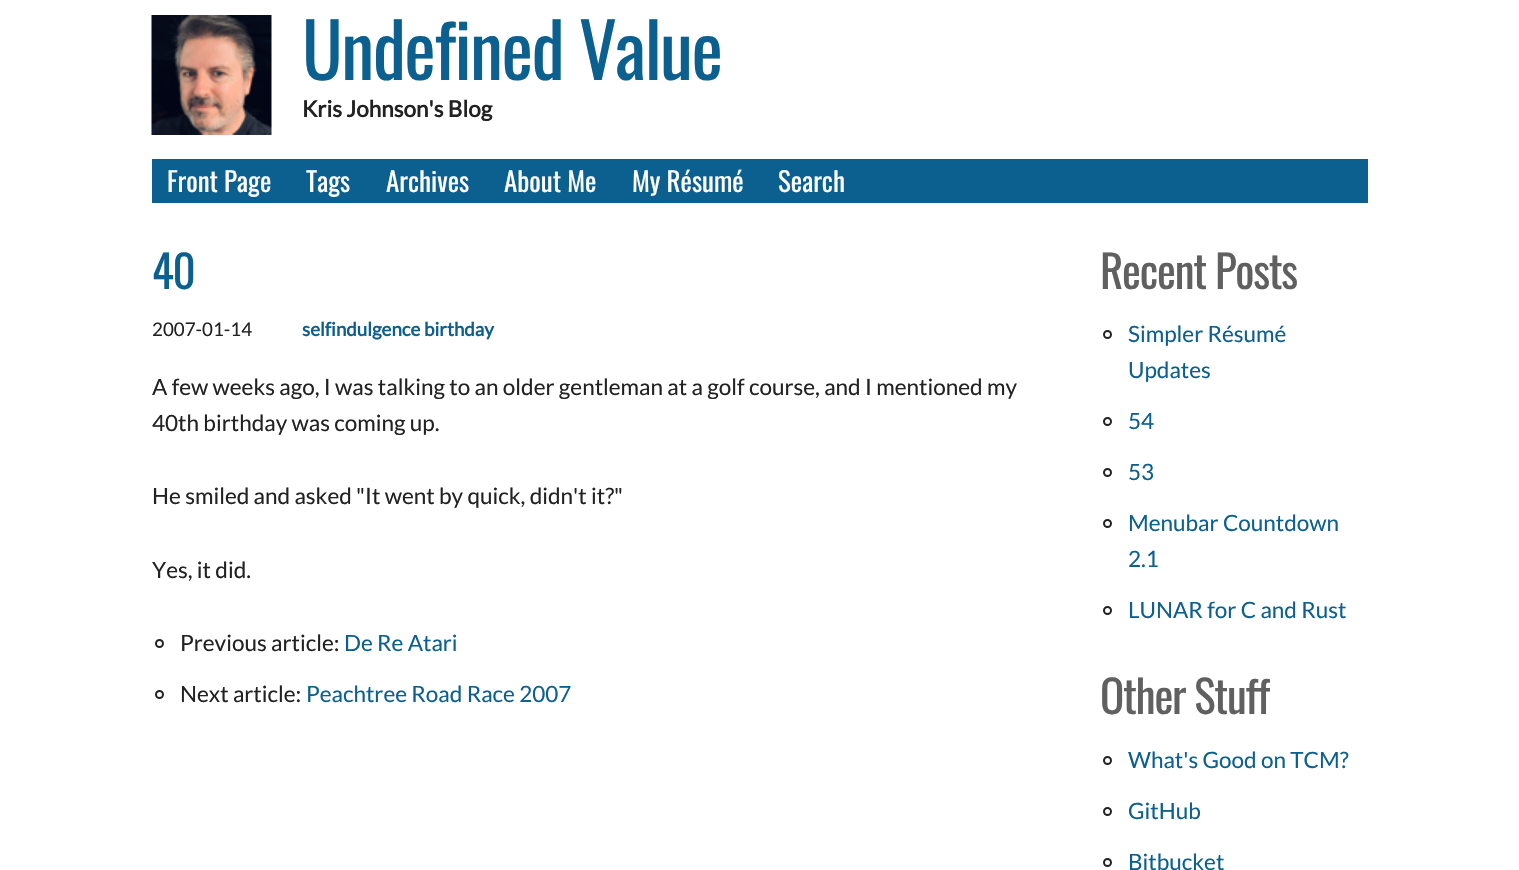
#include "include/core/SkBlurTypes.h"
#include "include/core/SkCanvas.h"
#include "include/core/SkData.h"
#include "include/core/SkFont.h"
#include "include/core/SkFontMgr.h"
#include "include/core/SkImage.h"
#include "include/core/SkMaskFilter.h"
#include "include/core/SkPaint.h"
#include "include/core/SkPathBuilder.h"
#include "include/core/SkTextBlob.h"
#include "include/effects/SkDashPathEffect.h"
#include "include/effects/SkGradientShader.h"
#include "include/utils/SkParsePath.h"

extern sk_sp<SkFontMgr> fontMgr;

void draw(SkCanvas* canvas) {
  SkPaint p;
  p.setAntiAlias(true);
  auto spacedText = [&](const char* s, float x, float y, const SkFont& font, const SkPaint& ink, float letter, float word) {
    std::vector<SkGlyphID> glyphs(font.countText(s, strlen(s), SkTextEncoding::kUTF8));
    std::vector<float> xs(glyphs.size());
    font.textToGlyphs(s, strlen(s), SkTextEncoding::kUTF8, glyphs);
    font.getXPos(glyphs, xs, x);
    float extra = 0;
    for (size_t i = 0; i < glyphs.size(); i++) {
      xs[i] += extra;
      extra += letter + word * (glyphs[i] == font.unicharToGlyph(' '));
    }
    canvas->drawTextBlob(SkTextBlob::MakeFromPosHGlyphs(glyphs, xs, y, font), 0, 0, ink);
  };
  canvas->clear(SK_ColorWHITE);
  canvas->drawImageRect(SkImages::DeferredFromEncodedData(SkData::MakeFromFileName("images/1.png")), SkRect::MakeLTRB(151, 15, 272, 135), SkSamplingOptions());
  p.setColor(SkColorSetRGB(12, 96, 144));
  canvas->drawRect(SkRect::MakeLTRB(152, 159, 1368, 203), p);
  p.setStyle(SkPaint::kStroke_Style);
  p.setStrokeWidth(2);
  p.setColor(SkColorSetRGB(34, 34, 34));
  canvas->drawCircle(159.5f, 643.5f, 3.5f, p);
  canvas->drawCircle(159.5f, 694.5f, 3.5f, p);
  canvas->drawCircle(1107.5f, 334.5f, 3.5f, p);
  canvas->drawCircle(1107.5f, 421.5f, 3.5f, p);
  canvas->drawCircle(1107.5f, 472.5f, 3.5f, p);
  canvas->drawCircle(1107.5f, 523.5f, 3.5f, p);
  canvas->drawCircle(1107.5f, 610.5f, 3.5f, p);
  canvas->drawCircle(1107.5f, 760.5f, 3.5f, p);
  canvas->drawCircle(1107.5f, 811.5f, 3.5f, p);
  canvas->drawCircle(1107.5f, 862.5f, 3.5f, p);
  SkFont font1(fontMgr->matchFamilyStyle("Oswald", SkFontStyle::Normal()), 75);
  font1.setSubpixel(true);
  p.setStyle(SkPaint::kFill_Style);
  p.setColor(SkColorSetRGB(12, 96, 144));
  spacedText("Undefined Value", 302, 80, font1, p, -1.5f, 0);
  SkFont font2(fontMgr->matchFamilyStyle("Lato", SkFontStyle::Bold()), 22.5f);
  font2.setSubpixel(true);
  p.setColor(SkColorSetRGB(34, 34, 34));
  canvas->drawString("Kris Johnson's Blog", 302, 117, font2, p);
  SkFont font3(fontMgr->matchFamilyStyle("Oswald", SkFontStyle::Normal()), 27);
  font3.setSubpixel(true);
  p.setColor(SK_ColorWHITE);
  canvas->drawString("Front Page", 167, 192, font3, p);
  canvas->drawString("Tags", 306, 192, font3, p);
  canvas->drawString("Archives", 386, 192, font3, p);
  canvas->drawString("About Me", 504, 192, font3, p);
  canvas->drawString("My Résumé", 632, 192, font3, p);
  canvas->drawString("Search", 778, 192, font3, p);
  SkFont font4(fontMgr->matchFamilyStyle("Oswald", SkFontStyle::Normal()), 45);
  font4.setSubpixel(true);
  p.setColor(SkColorSetRGB(12, 96, 144));
  spacedText("40", 152, 289, font4, p, -1.25f, 0);
  SkFont font5(fontMgr->matchFamilyStyle("Lato", SkFontStyle::Normal()), 18.75f);
  font5.setSubpixel(true);
  p.setColor(SkColorSetRGB(34, 34, 34));
  canvas->drawString("2007-01-14", 152, 336, font5, p);
  SkFont font6(fontMgr->matchFamilyStyle("Lato", SkFontStyle::Bold()), 18.75f);
  font6.setSubpixel(true);
  p.setColor(SkColorSetRGB(12, 96, 144));
  canvas->drawString("selfindulgence birthday", 302, 336, font6, p);
  SkFont font7(fontMgr->matchFamilyStyle("Lato", SkFontStyle::Normal()), 22.5f);
  font7.setSubpixel(true);
  p.setColor(SkColorSetRGB(34, 34, 34));
  canvas->drawString("A few weeks ago, I was talking to an older gentleman at a golf course, and I mentioned my", 152, 395, font7, p);
  canvas->drawString("40th birthday was coming up.", 152, 431, font7, p);
  canvas->drawString("He smiled and asked \"It went by quick, didn't it?\"", 152, 504, font7, p);
  canvas->drawString("Yes, it did.", 152, 578, font7, p);
  canvas->drawString("Previous article:", 180, 651, font7, p);
  p.setColor(SkColorSetRGB(12, 96, 144));
  canvas->drawString("De Re Atari", 344, 651, font7, p);
  p.setColor(SkColorSetRGB(34, 34, 34));
  canvas->drawString("Next article:", 180, 702, font7, p);
  p.setColor(SkColorSetRGB(12, 96, 144));
  canvas->drawString("Peachtree Road Race 2007", 306, 702, font7, p);
  p.setColor(SkColorSetRGB(96, 96, 96));
  spacedText("Recent Posts", 1100, 289, font4, p, -1.25f, 0);
  p.setColor(SkColorSetRGB(12, 96, 144));
  canvas->drawString("Simpler Résumé", 1128, 342, font7, p);
  canvas->drawString("Updates", 1128, 378, font7, p);
  canvas->drawString("54", 1128, 429, font7, p);
  canvas->drawString("53", 1128, 480, font7, p);
  canvas->drawString("Menubar Countdown", 1128, 531, font7, p);
  canvas->drawString("2.1", 1128, 567, font7, p);
  canvas->drawString("LUNAR for C and Rust", 1128, 618, font7, p);
  p.setColor(SkColorSetRGB(96, 96, 96));
  spacedText("Other Stuff", 1100, 714, font4, p, -1.25f, 0);
  p.setColor(SkColorSetRGB(12, 96, 144));
  canvas->drawString("What's Good on TCM?", 1128, 768, font7, p);
  canvas->drawString("GitHub", 1128, 819, font7, p);
  canvas->drawString("Bitbucket", 1128, 870, font7, p);
}
